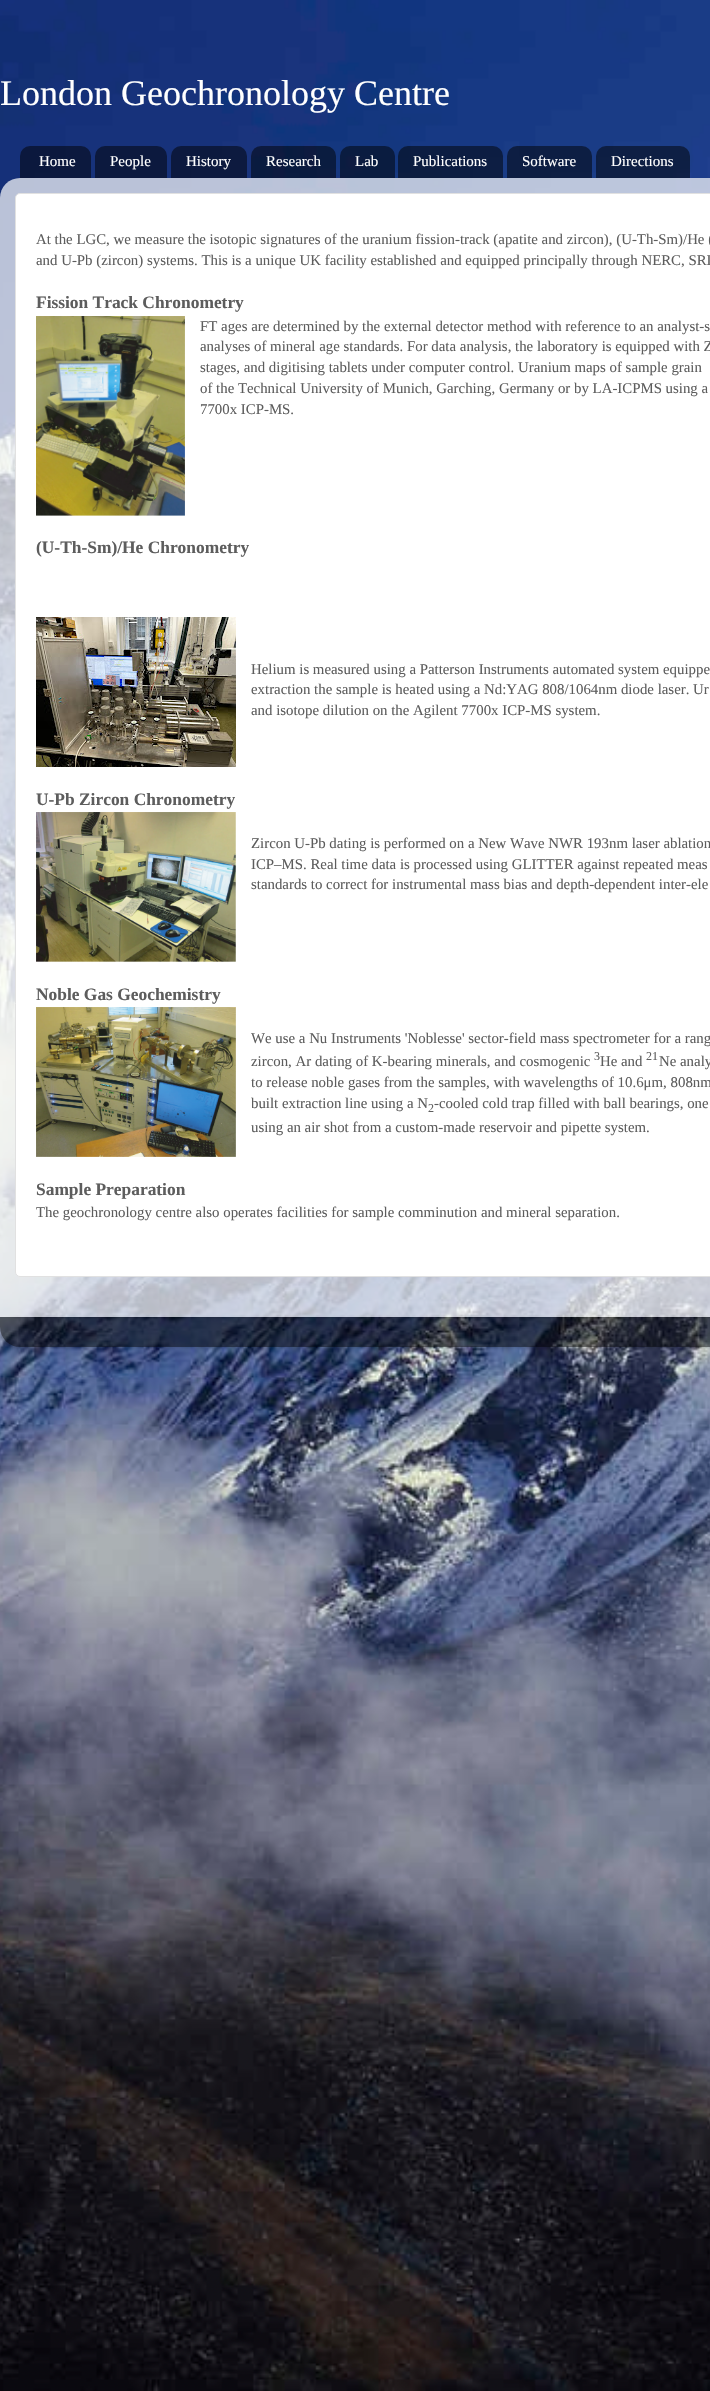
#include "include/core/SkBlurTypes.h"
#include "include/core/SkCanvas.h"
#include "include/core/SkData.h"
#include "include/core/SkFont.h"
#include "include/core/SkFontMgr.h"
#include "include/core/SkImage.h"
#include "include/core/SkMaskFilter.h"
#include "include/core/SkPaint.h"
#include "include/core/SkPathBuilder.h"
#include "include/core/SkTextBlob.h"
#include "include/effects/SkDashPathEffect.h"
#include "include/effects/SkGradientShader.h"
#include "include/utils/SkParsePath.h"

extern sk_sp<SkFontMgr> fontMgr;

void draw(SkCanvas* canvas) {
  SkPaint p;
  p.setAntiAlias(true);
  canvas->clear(SK_ColorWHITE);
  canvas->drawImageRect(SkImages::DeferredFromEncodedData(SkData::MakeFromFileName("images/1.png")), SkRect::MakeLTRB(0, 0, 710, 2391), SkSamplingOptions());
  canvas->drawImageRect(SkImages::DeferredFromEncodedData(SkData::MakeFromFileName("images/2.png")), SkRect::MakeLTRB(20, 146, 91, 178), SkSamplingOptions());
  canvas->drawImageRect(SkImages::DeferredFromEncodedData(SkData::MakeFromFileName("images/3.png")), SkRect::MakeLTRB(95, 146, 167, 178), SkSamplingOptions());
  canvas->drawImageRect(SkImages::DeferredFromEncodedData(SkData::MakeFromFileName("images/4.png")), SkRect::MakeLTRB(171, 146, 247, 178), SkSamplingOptions());
  canvas->drawImageRect(SkImages::DeferredFromEncodedData(SkData::MakeFromFileName("images/5.png")), SkRect::MakeLTRB(251, 146, 336, 178), SkSamplingOptions());
  canvas->drawImageRect(SkImages::DeferredFromEncodedData(SkData::MakeFromFileName("images/6.png")), SkRect::MakeLTRB(340, 146, 395, 178), SkSamplingOptions());
  canvas->drawImageRect(SkImages::DeferredFromEncodedData(SkData::MakeFromFileName("images/7.png")), SkRect::MakeLTRB(398, 146, 503, 178), SkSamplingOptions());
  canvas->drawImageRect(SkImages::DeferredFromEncodedData(SkData::MakeFromFileName("images/8.png")), SkRect::MakeLTRB(507, 146, 592, 178), SkSamplingOptions());
  canvas->drawImageRect(SkImages::DeferredFromEncodedData(SkData::MakeFromFileName("images/9.png")), SkRect::MakeLTRB(596, 146, 690, 178), SkSamplingOptions());
  canvas->save();
  canvas->clipPath(SkPathBuilder(SkPathFillType::kEvenOdd).moveTo(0, 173).lineTo(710, 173).lineTo(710, 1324).lineTo(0, 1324).close().moveTo(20, 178).lineTo(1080, 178).cubicTo(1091, 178, 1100, 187, 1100, 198).lineTo(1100, 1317).lineTo(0, 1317).lineTo(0, 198).cubicTo(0, 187, 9, 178, 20, 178).close().detach(), true);
  p.setColor(SkColorSetARGB(38, 0, 0, 0));
  p.setMaskFilter(SkMaskFilter::MakeBlur(kNormal_SkBlurStyle, 1.5f));
  canvas->drawRoundRect(SkRect::MakeLTRB(0, 179, 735, 1318), 20, 20, p);
  p.setMaskFilter(nullptr);
  canvas->restore();
  canvas->drawImageRect(SkImages::DeferredFromEncodedData(SkData::MakeFromFileName("images/10.png")), SkRect::MakeLTRB(0, 178, 710, 1317), SkSamplingOptions());
  p.setColor(SK_ColorWHITE);
  canvas->drawRoundRect(SkRect::MakeLTRB(15.5f, 193.5f, 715.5f, 1276.5f), 4.5f, 4.5f, p);
  p.setStyle(SkPaint::kStroke_Style);
  p.setStrokeWidth(1);
  p.setColor(SkColorSetRGB(225, 225, 225));
  canvas->drawRoundRect(SkRect::MakeLTRB(15.5f, 193.5f, 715.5f, 1276.5f), 4.5f, 4.5f, p);
  canvas->drawImageRect(SkImages::DeferredFromEncodedData(SkData::MakeFromFileName("images/11.png")), SkRect::MakeLTRB(36, 316, 185, 516), SkSamplingOptions());
  canvas->drawImageRect(SkImages::DeferredFromEncodedData(SkData::MakeFromFileName("images/12.png")), SkRect::MakeLTRB(36, 617, 236, 767), SkSamplingOptions());
  canvas->drawImageRect(SkImages::DeferredFromEncodedData(SkData::MakeFromFileName("images/13.png")), SkRect::MakeLTRB(36, 812, 236, 962), SkSamplingOptions());
  canvas->drawImageRect(SkImages::DeferredFromEncodedData(SkData::MakeFromFileName("images/14.png")), SkRect::MakeLTRB(36, 1007, 236, 1157), SkSamplingOptions());
  canvas->save();
  canvas->clipPath(SkPathBuilder(SkPathFillType::kEvenOdd).moveTo(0, 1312).lineTo(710, 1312).lineTo(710, 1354).lineTo(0, 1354).close().moveTo(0, 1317).lineTo(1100, 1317).lineTo(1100, 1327).cubicTo(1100, 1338, 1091, 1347, 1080, 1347).lineTo(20, 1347).cubicTo(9, 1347, 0, 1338, 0, 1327).close().detach(), true);
  p.setStyle(SkPaint::kFill_Style);
  p.setColor(SkColorSetARGB(38, 0, 0, 0));
  p.setMaskFilter(SkMaskFilter::MakeBlur(kNormal_SkBlurStyle, 1.5f));
  canvas->drawRoundRect(SkRect::MakeLTRB(0, 1318, 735, 1348), 20, 20, p);
  p.setMaskFilter(nullptr);
  canvas->restore();
  canvas->drawImageRect(SkImages::DeferredFromEncodedData(SkData::MakeFromFileName("images/15.png")), SkRect::MakeLTRB(0, 1317, 710, 1347), SkSamplingOptions());
  SkFont font1(fontMgr->matchFamilyStyle("Liberation Serif", SkFontStyle::Normal()), 36);
  font1.setSubpixel(true);
  p.setColor(SK_ColorWHITE);
  canvas->drawString("London Geochronology Centre", 0, 105, font1, p);
  SkFont font2(fontMgr->matchFamilyStyle("Liberation Serif", SkFontStyle::Normal()), 15);
  font2.setSubpixel(true);
  canvas->drawString("Home", 39, 166, font2, p);
  canvas->drawString("People", 110, 166, font2, p);
  canvas->drawString("History", 186, 166, font2, p);
  canvas->drawString("Research", 266, 166, font2, p);
  canvas->drawString("Lab", 355, 166, font2, p);
  canvas->drawString("Publications", 413, 166, font2, p);
  canvas->drawString("Software", 522, 166, font2, p);
  canvas->drawString("Directions", 611, 166, font2, p);
  SkFont font3(fontMgr->matchFamilyStyle("Liberation Serif", SkFontStyle::Normal()), 14.85f);
  font3.setSubpixel(true);
  p.setColor(SkColorSetRGB(93, 93, 93));
  canvas->drawString("At the LGC, we measure the isotopic signatures of the uranium fission-track (apatite and zircon), (U-Th-Sm)/He (", 36, 244, font3, p);
  canvas->drawString("and U-Pb (zircon) systems. This is a unique UK facility established and equipped principally through NERC, SRI", 36, 265, font3, p);
  SkFont font4(fontMgr->matchFamilyStyle("Liberation Serif", SkFontStyle::Bold()), 17.4f);
  font4.setSubpixel(true);
  canvas->drawString("Fission Track Chronometry", 36, 308, font4, p);
  canvas->drawString("FT ages are determined by the external detector method with reference to an analyst-s", 200, 331, font3, p);
  canvas->drawString("analyses of mineral age standards. For data analysis, the laboratory is equipped with Z", 200, 351, font3, p);
  canvas->drawString("stages, and digitising tablets under computer control. Uranium maps of sample grain", 200, 372, font3, p);
  canvas->drawString("of the Technical University of Munich, Garching, Germany or by LA-ICPMS using a", 200, 393, font3, p);
  canvas->drawString("7700x ICP-MS.", 200, 414, font3, p);
  canvas->drawString("(U-Th-Sm)/He Chronometry", 36, 553, font4, p);
  canvas->drawString("Helium is measured using a Patterson Instruments automated system equippe", 251, 674, font3, p);
  canvas->drawString("extraction the sample is heated using a Nd:YAG 808/1064nm diode laser. Ur", 251, 694, font3, p);
  canvas->drawString("and isotope dilution on the Agilent 7700x ICP-MS system.", 251, 715, font3, p);
  canvas->drawString("U-Pb Zircon Chronometry", 36, 805, font4, p);
  canvas->drawString("Zircon U-Pb dating is performed on a New Wave NWR 193nm laser ablation", 251, 848, font3, p);
  canvas->drawString("ICP–MS. Real time data is processed using GLITTER against repeated meas", 251, 869, font3, p);
  canvas->drawString("standards to correct for instrumental mass bias and depth-dependent inter-ele", 251, 889, font3, p);
  canvas->drawString("Noble Gas Geochemistry", 36, 1000, font4, p);
  canvas->drawString("We use a Nu Instruments 'Noblesse' sector-field mass spectrometer for a rang", 251, 1043, font3, p);
  canvas->drawString("zircon, Ar dating of K-bearing minerals, and cosmogenic", 251, 1066, font3, p);
  SkFont font5(fontMgr->matchFamilyStyle("Liberation Serif", SkFontStyle::Normal()), 12);
  font5.setSubpixel(true);
  canvas->drawString("3", 594, 1060, font5, p);
  canvas->drawString("He and", 600, 1066, font3, p);
  canvas->drawString("21", 646, 1060, font5, p);
  canvas->drawString("Ne analy", 659, 1066, font3, p);
  canvas->drawString("to release noble gases from the samples, with wavelengths of 10.6μm, 808nm", 251, 1087, font3, p);
  canvas->drawString("built extraction line using a N", 251, 1108, font3, p);
  canvas->drawString("2", 428, 1112, font5, p);
  canvas->drawString("-cooled cold trap filled with ball bearings, one", 434, 1108, font3, p);
  canvas->drawString("using an air shot from a custom-made reservoir and pipette system.", 251, 1132, font3, p);
  canvas->drawString("Sample Preparation", 36, 1195, font4, p);
  canvas->drawString("The geochronology centre also operates facilities for sample comminution and mineral separation.", 36, 1217, font3, p);
}
